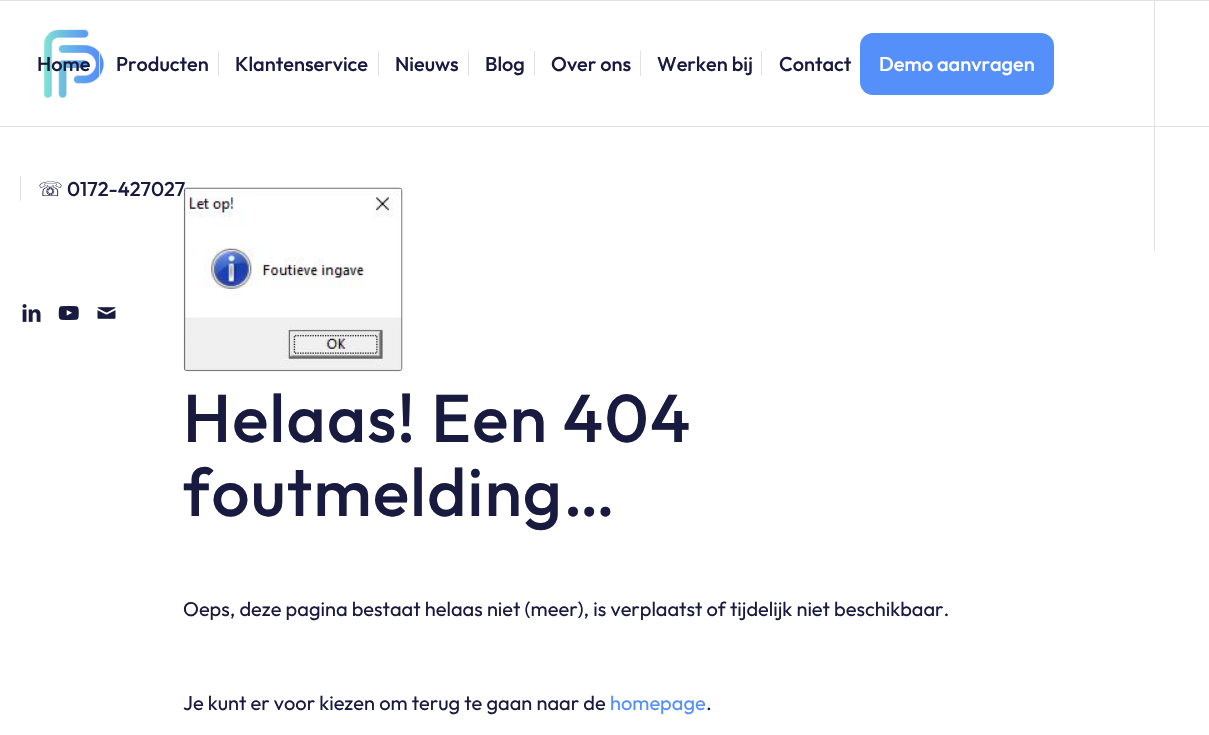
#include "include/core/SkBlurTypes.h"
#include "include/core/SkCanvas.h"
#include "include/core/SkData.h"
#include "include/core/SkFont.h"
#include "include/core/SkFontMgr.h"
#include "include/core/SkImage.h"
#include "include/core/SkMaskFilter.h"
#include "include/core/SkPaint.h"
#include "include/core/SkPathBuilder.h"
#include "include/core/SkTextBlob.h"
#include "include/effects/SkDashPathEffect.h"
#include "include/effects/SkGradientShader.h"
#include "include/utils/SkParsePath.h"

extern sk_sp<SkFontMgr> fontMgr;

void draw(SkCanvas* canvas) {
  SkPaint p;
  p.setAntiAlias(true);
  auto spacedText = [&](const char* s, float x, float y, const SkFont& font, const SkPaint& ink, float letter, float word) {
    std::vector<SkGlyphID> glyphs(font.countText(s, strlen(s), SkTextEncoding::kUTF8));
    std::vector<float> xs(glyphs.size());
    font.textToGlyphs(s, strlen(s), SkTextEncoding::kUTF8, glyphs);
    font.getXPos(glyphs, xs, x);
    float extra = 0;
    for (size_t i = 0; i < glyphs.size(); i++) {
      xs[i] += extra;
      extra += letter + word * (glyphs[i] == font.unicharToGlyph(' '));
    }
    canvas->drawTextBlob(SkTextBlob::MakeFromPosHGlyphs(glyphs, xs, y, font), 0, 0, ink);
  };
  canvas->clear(SK_ColorWHITE);
  p.setColor(SkColorSetRGB(225, 225, 225));
  canvas->drawRect(SkRect::MakeLTRB(0, 0, 1209, 1), p);
  canvas->drawRect(SkRect::MakeLTRB(0, 126, 1209, 127), p);
  canvas->drawImageRect(SkImages::DeferredFromEncodedData(SkData::MakeFromFileName("images/1.png")), SkRect::MakeLTRB(43, 29, 104, 98), SkSamplingOptions());
  canvas->drawRect(SkRect::MakeLTRB(1154, 1, 1155, 251), p);
  canvas->drawRect(SkRect::MakeLTRB(99, 51, 100, 76), p);
  canvas->drawRect(SkRect::MakeLTRB(218, 51, 219, 76), p);
  canvas->drawRect(SkRect::MakeLTRB(378, 51, 379, 76), p);
  canvas->drawRect(SkRect::MakeLTRB(468, 51, 469, 76), p);
  canvas->drawRect(SkRect::MakeLTRB(534, 51, 535, 76), p);
  canvas->drawRect(SkRect::MakeLTRB(640, 51, 641, 76), p);
  canvas->drawRect(SkRect::MakeLTRB(761, 51, 762, 76), p);
  p.setColor(SkColorSetRGB(85, 143, 250));
  canvas->drawRoundRect(SkRect::MakeLTRB(860, 33, 1054, 95), 13, 13, p);
  p.setColor(SkColorSetRGB(225, 225, 225));
  canvas->drawRect(SkRect::MakeLTRB(20, 176, 21, 201), p);
  canvas->drawImageRect(SkImages::DeferredFromEncodedData(SkData::MakeFromFileName("images/2.png")), SkRect::MakeLTRB(22, 304, 41, 322), SkSamplingOptions());
  canvas->drawImageRect(SkImages::DeferredFromEncodedData(SkData::MakeFromFileName("images/3.png")), SkRect::MakeLTRB(58, 305, 79, 321), SkSamplingOptions());
  canvas->drawImageRect(SkImages::DeferredFromEncodedData(SkData::MakeFromFileName("images/4.png")), SkRect::MakeLTRB(97, 307, 116, 319), SkSamplingOptions());
  canvas->drawImageRect(SkImages::DeferredFromEncodedData(SkData::MakeFromFileName("images/5.png")), SkRect::MakeLTRB(183, 187, 403, 372), SkSamplingOptions());
  SkFont font1(fontMgr->matchFamilyStyle("Outfit", SkFontStyle(500, SkFontStyle::kNormal_Width, SkFontStyle::kUpright_Slant)), 20);
  font1.setSubpixel(true);
  p.setColor(SkColorSetRGB(25, 26, 63));
  canvas->drawString("Home", 37, 71, font1, p);
  canvas->drawString("Producten", 116, 71, font1, p);
  canvas->drawString("Klantenservice", 235, 71, font1, p);
  canvas->drawString("Nieuws", 395, 71, font1, p);
  canvas->drawString("Blog", 485, 71, font1, p);
  canvas->drawString("Over ons", 551, 71, font1, p);
  canvas->drawString("Werken bij", 657, 71, font1, p);
  canvas->drawString("Contact", 779, 71, font1, p);
  p.setColor(SK_ColorWHITE);
  canvas->drawString("Demo aanvragen", 879, 71, font1, p);
  SkFont font2(fontMgr->matchFamilyStyle("DejaVu Sans", SkFontStyle::Normal()), 20);
  font2.setSubpixel(true);
  p.setColor(SkColorSetRGB(25, 26, 63));
  canvas->drawString("☏", 38, 196, font2, p);
  canvas->drawString("0172-427027", 67, 196, font1, p);
  SkFont font3(fontMgr->matchFamilyStyle("Outfit", SkFontStyle(500, SkFontStyle::kNormal_Width, SkFontStyle::kUpright_Slant)), 67.5f);
  font3.setSubpixel(true);
  spacedText("Helaas! Een 404", 183, 442, font3, p, 1.25f, 0);
  spacedText("foutmelding…", 183, 516, font3, p, 1.25f, 0);
  SkFont font4(fontMgr->matchFamilyStyle("Outfit", SkFontStyle::Normal()), 20);
  font4.setSubpixel(true);
  canvas->drawString("Oeps, deze pagina bestaat helaas niet (meer), is verplaatst of tijdelijk niet beschikbaar.", 183, 616, font4, p);
  canvas->drawString("Je kunt er voor kiezen om terug te gaan naar de", 183, 710, font4, p);
  p.setColor(SkColorSetRGB(85, 143, 250));
  canvas->drawString("homepage", 610, 710, font4, p);
  p.setColor(SkColorSetRGB(25, 26, 63));
  canvas->drawString(".", 706, 710, font4, p);
}
